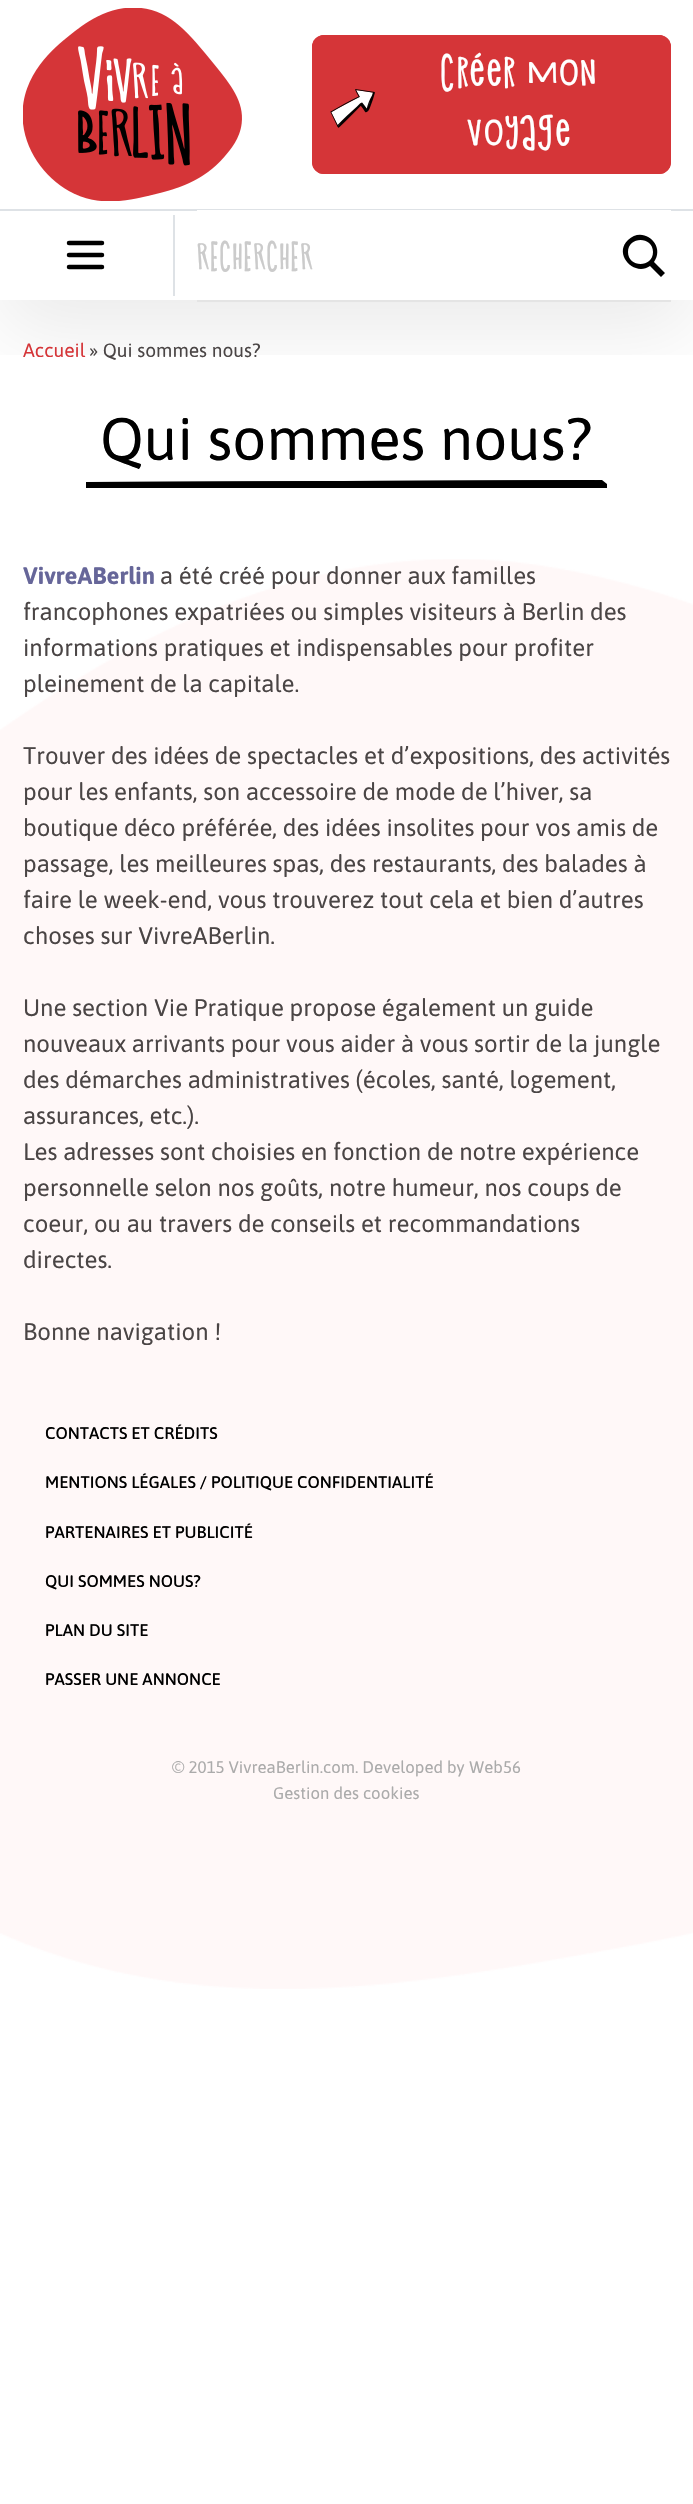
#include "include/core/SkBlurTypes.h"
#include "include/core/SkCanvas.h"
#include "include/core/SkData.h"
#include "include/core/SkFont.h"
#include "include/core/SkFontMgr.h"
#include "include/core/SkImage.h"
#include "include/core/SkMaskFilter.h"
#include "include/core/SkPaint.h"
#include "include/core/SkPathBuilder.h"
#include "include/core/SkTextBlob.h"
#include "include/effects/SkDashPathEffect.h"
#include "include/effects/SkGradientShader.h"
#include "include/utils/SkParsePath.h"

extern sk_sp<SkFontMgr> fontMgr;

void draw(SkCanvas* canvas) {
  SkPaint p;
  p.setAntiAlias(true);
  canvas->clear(SK_ColorWHITE);
  canvas->drawImageRect(SkImages::DeferredFromEncodedData(SkData::MakeFromFileName("images/1.png")), SkRect::MakeLTRB(0, 559, 693, 1989), SkSamplingOptions());
  canvas->save();
  canvas->clipRect(SkRect::MakeLTRB(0, 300, 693, 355));
  p.setColor(SkColorSetARGB(20, 0, 0, 0));
  p.setMaskFilter(SkMaskFilter::MakeBlur(kNormal_SkBlurStyle, 37.5f));
  canvas->drawRect(SkRect::MakeLTRB(0, 30, 693, 330), p);
  p.setMaskFilter(nullptr);
  canvas->restore();
  canvas->drawImageRect(SkImages::DeferredFromEncodedData(SkData::MakeFromFileName("images/2.png")), SkRect::MakeLTRB(23, 8, 242, 201), SkSamplingOptions());
  p.setColor(SkColorSetRGB(213, 53, 56));
  canvas->drawRoundRect(SkRect::MakeLTRB(312, 35, 671, 174), 12, 12, p);
  canvas->drawImageRect(SkImages::DeferredFromEncodedData(SkData::MakeFromFileName("images/3.png")), SkRect::MakeLTRB(330, 89, 375, 128), SkSamplingOptions());
  p.setStyle(SkPaint::kStroke_Style);
  p.setStrokeWidth(2);
  canvas->drawRoundRect(SkRect::MakeLTRB(313, 36, 670, 173), 11, 11, p);
  p.setStyle(SkPaint::kFill_Style);
  p.setColor(SkColorSetRGB(222, 226, 230));
  canvas->drawRect(SkRect::MakeLTRB(0, 209, 693, 211), p);
  canvas->drawRect(SkRect::MakeLTRB(173, 215, 175, 296), p);
  p.setStyle(SkPaint::kStroke_Style);
  p.setStrokeWidth(4.5f);
  p.setStrokeCap(SkPaint::kRound_Cap);
  p.setColor(SK_ColorBLACK);
  canvas->drawPath(SkPathBuilder().moveTo(69, 243).lineTo(102, 243).moveTo(69, 255).lineTo(102, 255).moveTo(69, 267).lineTo(102, 267).detach(), p);
  p.setStyle(SkPaint::kFill_Style);
  p.setColor(SkColorSetRGB(228, 228, 228));
  canvas->drawPath(SkPathBuilder().moveTo(197, 300).lineTo(197, 302).lineTo(671, 302).lineTo(671, 212).lineTo(670, 212).lineTo(670, 300).close().detach(), p);
  p.setColor(SK_ColorWHITE);
  canvas->drawRect(SkRect::MakeLTRB(197, 210, 671, 300), p);
  p.setColor(SK_ColorBLACK);
  canvas->drawPath(SkPathBuilder().moveTo(665, 273).lineTo(654, 262).cubicTo(666, 245, 643, 225, 628, 240).cubicTo(613, 254, 634, 277, 650, 266).lineTo(661, 277).close().moveTo(628, 252).cubicTo(628, 236, 653, 236, 653, 252).cubicTo(653, 268, 628, 268, 628, 252).close().detach(), p);
  canvas->save();
  canvas->clipRect(SkRect::MakeLTRB(86, 480, 608, 488));
  canvas->drawPath(SkPathBuilder().moveTo(73, 482).lineTo(602, 480).lineTo(607, 484).lineTo(607, 488).lineTo(73, 488).close().detach(), p);
  canvas->restore();
  canvas->save();
  canvas->clipRect(SkRect::MakeLTRB(93, 480, 600, 488));
  canvas->drawPath(SkPathBuilder().moveTo(66, 482).lineTo(594, 480).lineTo(599, 484).lineTo(599, 488).lineTo(66, 488).close().detach(), p);
  canvas->restore();
  SkFont font1(fontMgr->matchFamilyStyle("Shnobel", SkFontStyle::Normal()), 40);
  font1.setSubpixel(true);
  p.setColor(SK_ColorWHITE);
  canvas->drawString("Créer mon", 441, 88, font1, p);
  canvas->drawString("voyage", 468, 148, font1, p);
  SkFont font2(fontMgr->matchFamilyStyle("Shnobel", SkFontStyle::Normal()), 33);
  font2.setSubpixel(true);
  p.setColor(SkColorSetRGB(203, 203, 203));
  canvas->drawString("RECHERCHER", 197, 269, font2, p);
  SkFont font3(fontMgr->matchFamilyStyle("Asap", SkFontStyle::Normal()), 19.25f);
  font3.setSubpixel(true);
  p.setColor(SkColorSetRGB(213, 53, 56));
  canvas->drawString("Accueil", 23, 357, font3, p);
  p.setColor(SkColorSetRGB(74, 69, 69));
  canvas->drawString("» Qui sommes nous?", 89, 357, font3, p);
  SkFont font4(fontMgr->matchFamilyStyle("Asap", SkFontStyle::Normal()), 60);
  font4.setSubpixel(true);
  p.setColor(SK_ColorBLACK);
  canvas->drawString("Qui sommes nous?", 100, 460, font4, p);
  SkFont font5(fontMgr->matchFamilyStyle("Asap", SkFontStyle::Bold()), 24);
  font5.setSubpixel(true);
  p.setColor(SkColorSetRGB(102, 102, 153));
  canvas->drawString("VivreABerlin", 23, 584, font5, p);
  SkFont font6(fontMgr->matchFamilyStyle("Asap", SkFontStyle::Normal()), 24);
  font6.setSubpixel(true);
  p.setColor(SkColorSetRGB(74, 69, 69));
  canvas->drawString("a été créé pour donner aux familles", 160, 584, font6, p);
  canvas->drawString("francophones expatriées ou simples visiteurs à Berlin des", 23, 620, font6, p);
  canvas->drawString("informations pratiques et indispensables pour profiter", 23, 656, font6, p);
  canvas->drawString("pleinement de la capitale.", 23, 692, font6, p);
  canvas->drawString("Trouver des idées de spectacles et d’expositions, des activités", 23, 764, font6, p);
  canvas->drawString("pour les enfants, son accessoire de mode de l’hiver, sa", 23, 800, font6, p);
  canvas->drawString("boutique déco préférée, des idées insolites pour vos amis de", 23, 836, font6, p);
  canvas->drawString("passage, les meilleures spas, des restaurants, des balades à", 23, 872, font6, p);
  canvas->drawString("faire le week-end, vous trouverez tout cela et bien d’autres", 23, 908, font6, p);
  canvas->drawString("choses sur VivreABerlin.", 23, 944, font6, p);
  canvas->drawString("Une section Vie Pratique propose également un guide", 23, 1016, font6, p);
  canvas->drawString("nouveaux arrivants pour vous aider à vous sortir de la jungle", 23, 1052, font6, p);
  canvas->drawString("des démarches administratives (écoles, santé, logement,", 23, 1088, font6, p);
  canvas->drawString("assurances, etc.).", 23, 1124, font6, p);
  canvas->drawString("Les adresses sont choisies en fonction de notre expérience", 23, 1160, font6, p);
  canvas->drawString("personnelle selon nos goûts, notre humeur, nos coups de", 23, 1196, font6, p);
  canvas->drawString("coeur, ou au travers de conseils et recommandations", 23, 1232, font6, p);
  canvas->drawString("directes.", 23, 1268, font6, p);
  canvas->drawString("Bonne navigation !", 23, 1340, font6, p);
  SkFont font7(fontMgr->matchFamilyStyle("Asap Medium", SkFontStyle(500, SkFontStyle::kNormal_Width, SkFontStyle::kUpright_Slant)), 16.8f);
  font7.setSubpixel(true);
  p.setColor(SK_ColorBLACK);
  canvas->drawString("CONTACTS ET CRÉDITS", 45, 1439, font7, p);
  canvas->drawString("MENTIONS LÉGALES / POLITIQUE CONFIDENTIALITÉ", 45, 1488, font7, p);
  canvas->drawString("PARTENAIRES ET PUBLICITÉ", 45, 1538, font7, p);
  canvas->drawString("QUI SOMMES NOUS?", 45, 1587, font7, p);
  canvas->drawString("PLAN DU SITE", 45, 1636, font7, p);
  canvas->drawString("PASSER UNE ANNONCE", 45, 1685, font7, p);
  SkFont font8(fontMgr->matchFamilyStyle("Asap", SkFontStyle::Normal()), 16.8f);
  font8.setSubpixel(true);
  p.setColor(SkColorSetRGB(171, 171, 171));
  canvas->drawString("© 2015 VivreaBerlin.com. Developed by", 172, 1773, font8, p);
  canvas->drawString("Web56", 469, 1773, font8, p);
  canvas->drawString("Gestion des cookies", 273, 1799, font8, p);
}
